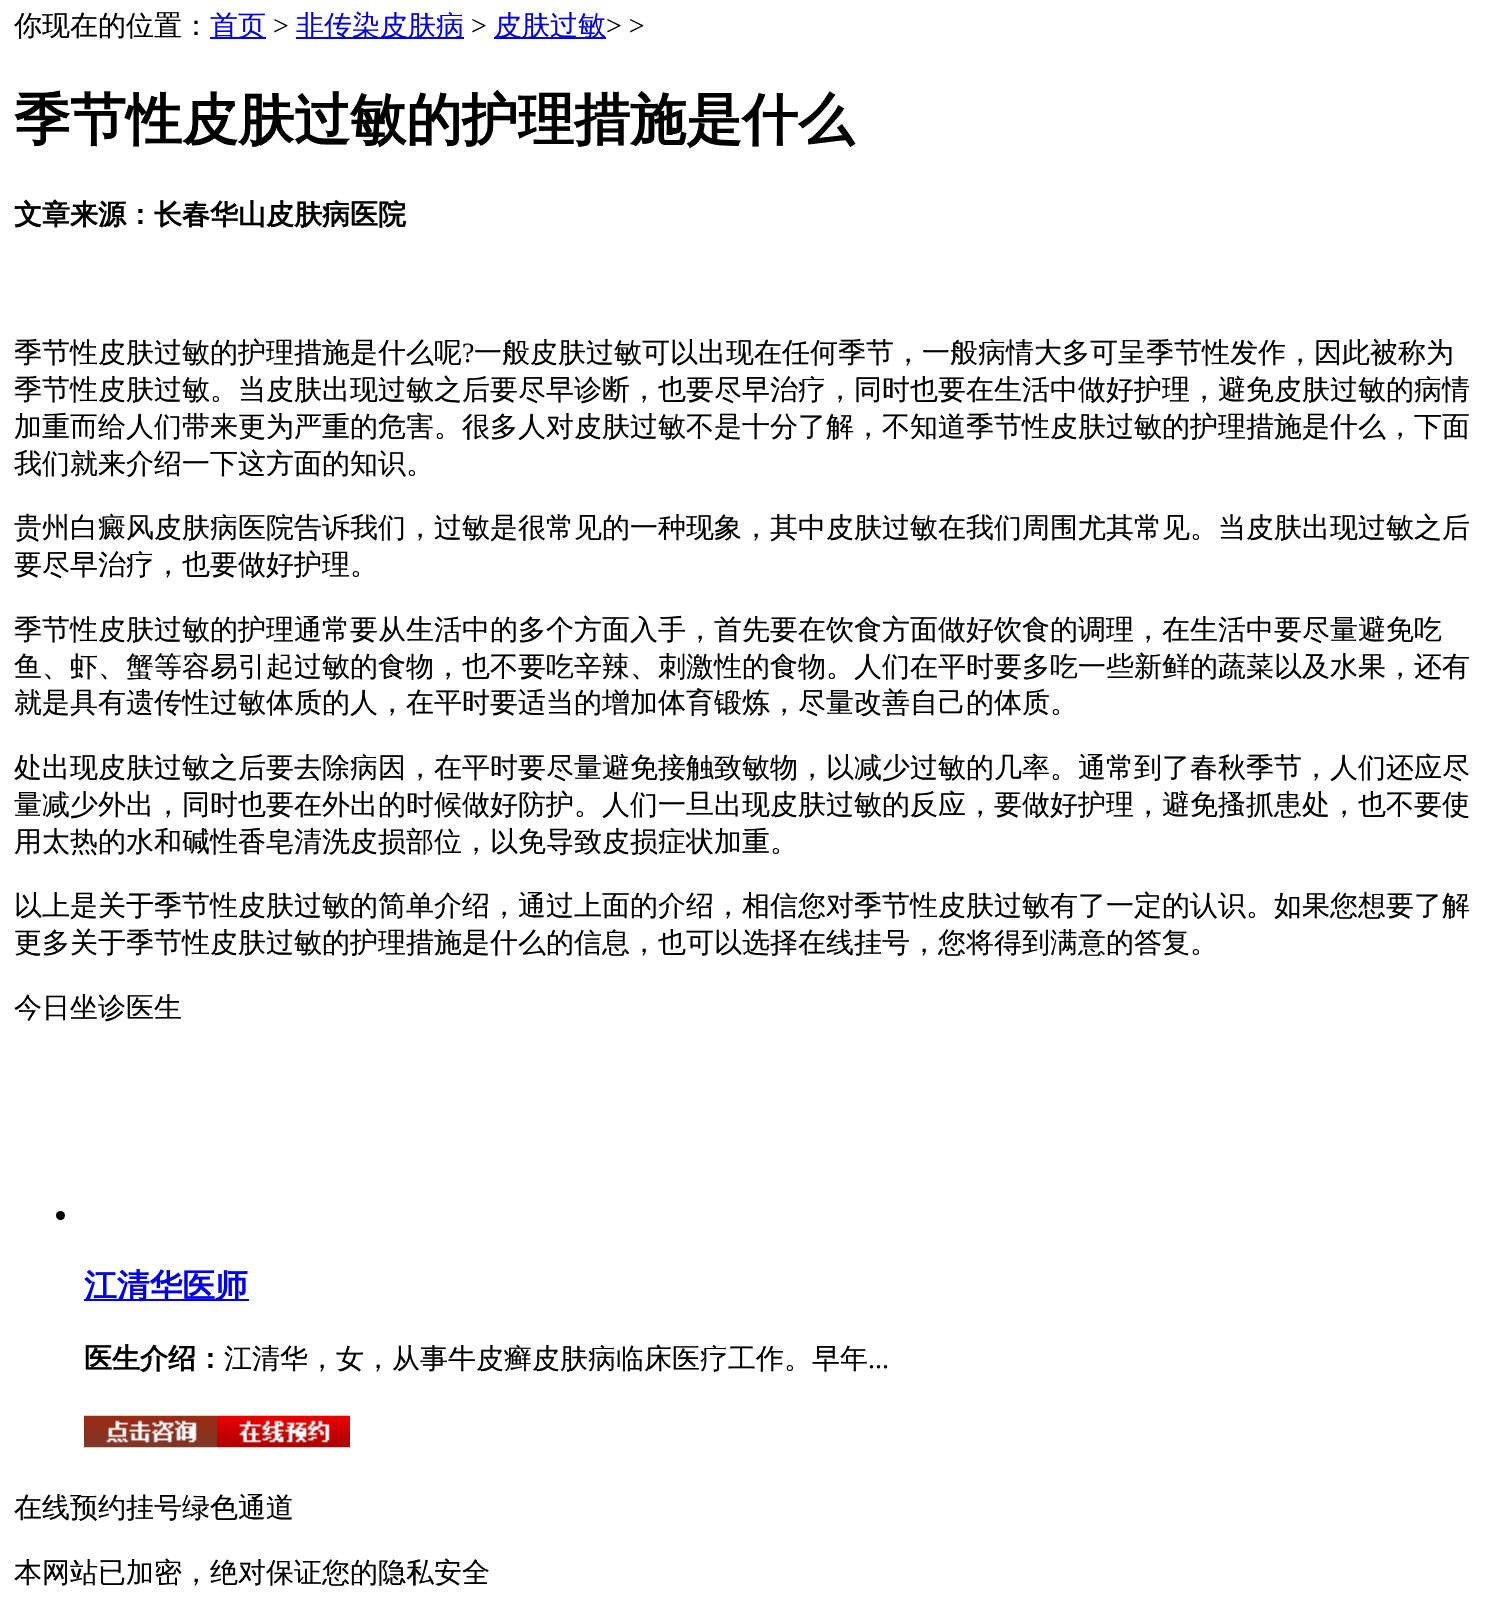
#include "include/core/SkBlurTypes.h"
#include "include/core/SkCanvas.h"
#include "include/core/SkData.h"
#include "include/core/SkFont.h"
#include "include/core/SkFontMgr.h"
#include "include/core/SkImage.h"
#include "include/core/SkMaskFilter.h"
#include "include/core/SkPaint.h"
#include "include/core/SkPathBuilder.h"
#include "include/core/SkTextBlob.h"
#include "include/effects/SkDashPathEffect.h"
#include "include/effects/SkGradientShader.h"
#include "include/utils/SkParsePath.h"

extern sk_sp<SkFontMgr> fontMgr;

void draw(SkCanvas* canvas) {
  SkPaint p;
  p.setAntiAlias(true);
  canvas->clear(SK_ColorWHITE);
  p.setColor(SkColorSetRGB(0, 0, 238));
  canvas->drawRect(SkRect::MakeLTRB(210, 37, 266, 39), p);
  canvas->drawRect(SkRect::MakeLTRB(296, 37, 464, 39), p);
  canvas->drawRect(SkRect::MakeLTRB(494, 37, 606, 39), p);
  p.setColor(SK_ColorBLACK);
  canvas->drawCircle(60.5f, 1215.5f, 4.5f, p);
  p.setColor(SkColorSetRGB(0, 0, 238));
  canvas->drawRect(SkRect::MakeLTRB(84, 1299, 249, 1301), p);
  canvas->drawImageRect(SkImages::DeferredFromEncodedData(SkData::MakeFromFileName("images/1.png")), SkRect::MakeLTRB(84, 1415, 217, 1448), SkSamplingOptions());
  canvas->drawImageRect(SkImages::DeferredFromEncodedData(SkData::MakeFromFileName("images/2.png")), SkRect::MakeLTRB(217, 1415, 350, 1448), SkSamplingOptions());
  SkFont font1(fontMgr->matchFamilyStyle("WenQuanYi Zen Hei", SkFontStyle(500, SkFontStyle::kNormal_Width, SkFontStyle::kUpright_Slant)), 28);
  font1.setSubpixel(true);
  p.setColor(SK_ColorBLACK);
  canvas->drawString("你现在的位置：", 14, 35, font1, p);
  p.setColor(SkColorSetRGB(0, 0, 238));
  canvas->drawString("首页", 210, 35, font1, p);
  SkFont font2(fontMgr->matchFamilyStyle("Liberation Serif", SkFontStyle::Normal()), 28);
  font2.setSubpixel(true);
  p.setColor(SK_ColorBLACK);
  canvas->drawString(">", 273, 35, font2, p);
  p.setColor(SkColorSetRGB(0, 0, 238));
  canvas->drawString("非传染皮肤病", 296, 35, font1, p);
  p.setColor(SK_ColorBLACK);
  canvas->drawString(">", 471, 35, font2, p);
  p.setColor(SkColorSetRGB(0, 0, 238));
  canvas->drawString("皮肤过敏", 494, 35, font1, p);
  p.setColor(SK_ColorBLACK);
  canvas->drawString("> >", 606, 35, font2, p);
  SkFont font3(fontMgr->matchFamilyStyle("WenQuanYi Zen Hei", SkFontStyle::Bold()), 56);
  font3.setSubpixel(true);
  canvas->drawString("季节性皮肤过敏的护理措施是什么", 14, 139, font3, p);
  SkFont font4(fontMgr->matchFamilyStyle("WenQuanYi Zen Hei", SkFontStyle::Bold()), 28);
  font4.setSubpixel(true);
  canvas->drawString("文章来源：长春华山皮肤病医院", 14, 224, font4, p);
  canvas->drawString("季节性皮肤过敏的护理措施是什么呢", 14, 362, font1, p);
  canvas->drawString("?", 462, 362, font2, p);
  canvas->drawString("一般皮肤过敏可以出现在任何季节，一般病情大多可呈季节性发作，因此被称为", 474, 362, font1, p);
  canvas->drawString("季节性皮肤过敏。当皮肤出现过敏之后要尽早诊断，也要尽早治疗，同时也要在生活中做好护理，避免皮肤过敏的病情", 14, 399, font1, p);
  canvas->drawString("加重而给人们带来更为严重的危害。很多人对皮肤过敏不是十分了解，不知道季节性皮肤过敏的护理措施是什么，下面", 14, 436, font1, p);
  canvas->drawString("我们就来介绍一下这方面的知识。", 14, 473, font1, p);
  canvas->drawString("贵州白癜风皮肤病医院告诉我们，过敏是很常见的一种现象，其中皮肤过敏在我们周围尤其常见。当皮肤出现过敏之后", 14, 537, font1, p);
  canvas->drawString("要尽早治疗，也要做好护理。", 14, 574, font1, p);
  canvas->drawString("季节性皮肤过敏的护理通常要从生活中的多个方面入手，首先要在饮食方面做好饮食的调理，在生活中要尽量避免吃", 14, 639, font1, p);
  canvas->drawString("鱼、虾、蟹等容易引起过敏的食物，也不要吃辛辣、刺激性的食物。人们在平时要多吃一些新鲜的蔬菜以及水果，还有", 14, 676, font1, p);
  canvas->drawString("就是具有遗传性过敏体质的人，在平时要适当的增加体育锻炼，尽量改善自己的体质。", 14, 712, font1, p);
  canvas->drawString("处出现皮肤过敏之后要去除病因，在平时要尽量避免接触致敏物，以减少过敏的几率。通常到了春秋季节，人们还应尽", 14, 777, font1, p);
  canvas->drawString("量减少外出，同时也要在外出的时候做好防护。人们一旦出现皮肤过敏的反应，要做好护理，避免搔抓患处，也不要使", 14, 814, font1, p);
  canvas->drawString("用太热的水和碱性香皂清洗皮损部位，以免导致皮损症状加重。", 14, 851, font1, p);
  canvas->drawString("以上是关于季节性皮肤过敏的简单介绍，通过上面的介绍，相信您对季节性皮肤过敏有了一定的认识。如果您想要了解", 14, 915, font1, p);
  canvas->drawString("更多关于季节性皮肤过敏的护理措施是什么的信息，也可以选择在线挂号，您将得到满意的答复。", 14, 952, font1, p);
  canvas->drawString("今日坐诊医生", 14, 1017, font1, p);
  SkFont font5(fontMgr->matchFamilyStyle("WenQuanYi Zen Hei", SkFontStyle::Bold()), 32.75f);
  font5.setSubpixel(true);
  p.setColor(SkColorSetRGB(0, 0, 238));
  canvas->drawString("江清华医师", 84, 1297, font5, p);
  p.setColor(SK_ColorBLACK);
  canvas->drawString("医生介绍：", 84, 1368, font4, p);
  canvas->drawString("江清华，女，从事牛皮癣皮肤病临床医疗工作。早年", 224, 1368, font1, p);
  canvas->drawString("...", 868, 1368, font2, p);
  canvas->drawString("在线预约挂号绿色通道", 14, 1517, font1, p);
  canvas->drawString("本网站已加密，绝对保证您的隐私安全", 14, 1582, font1, p);
}
